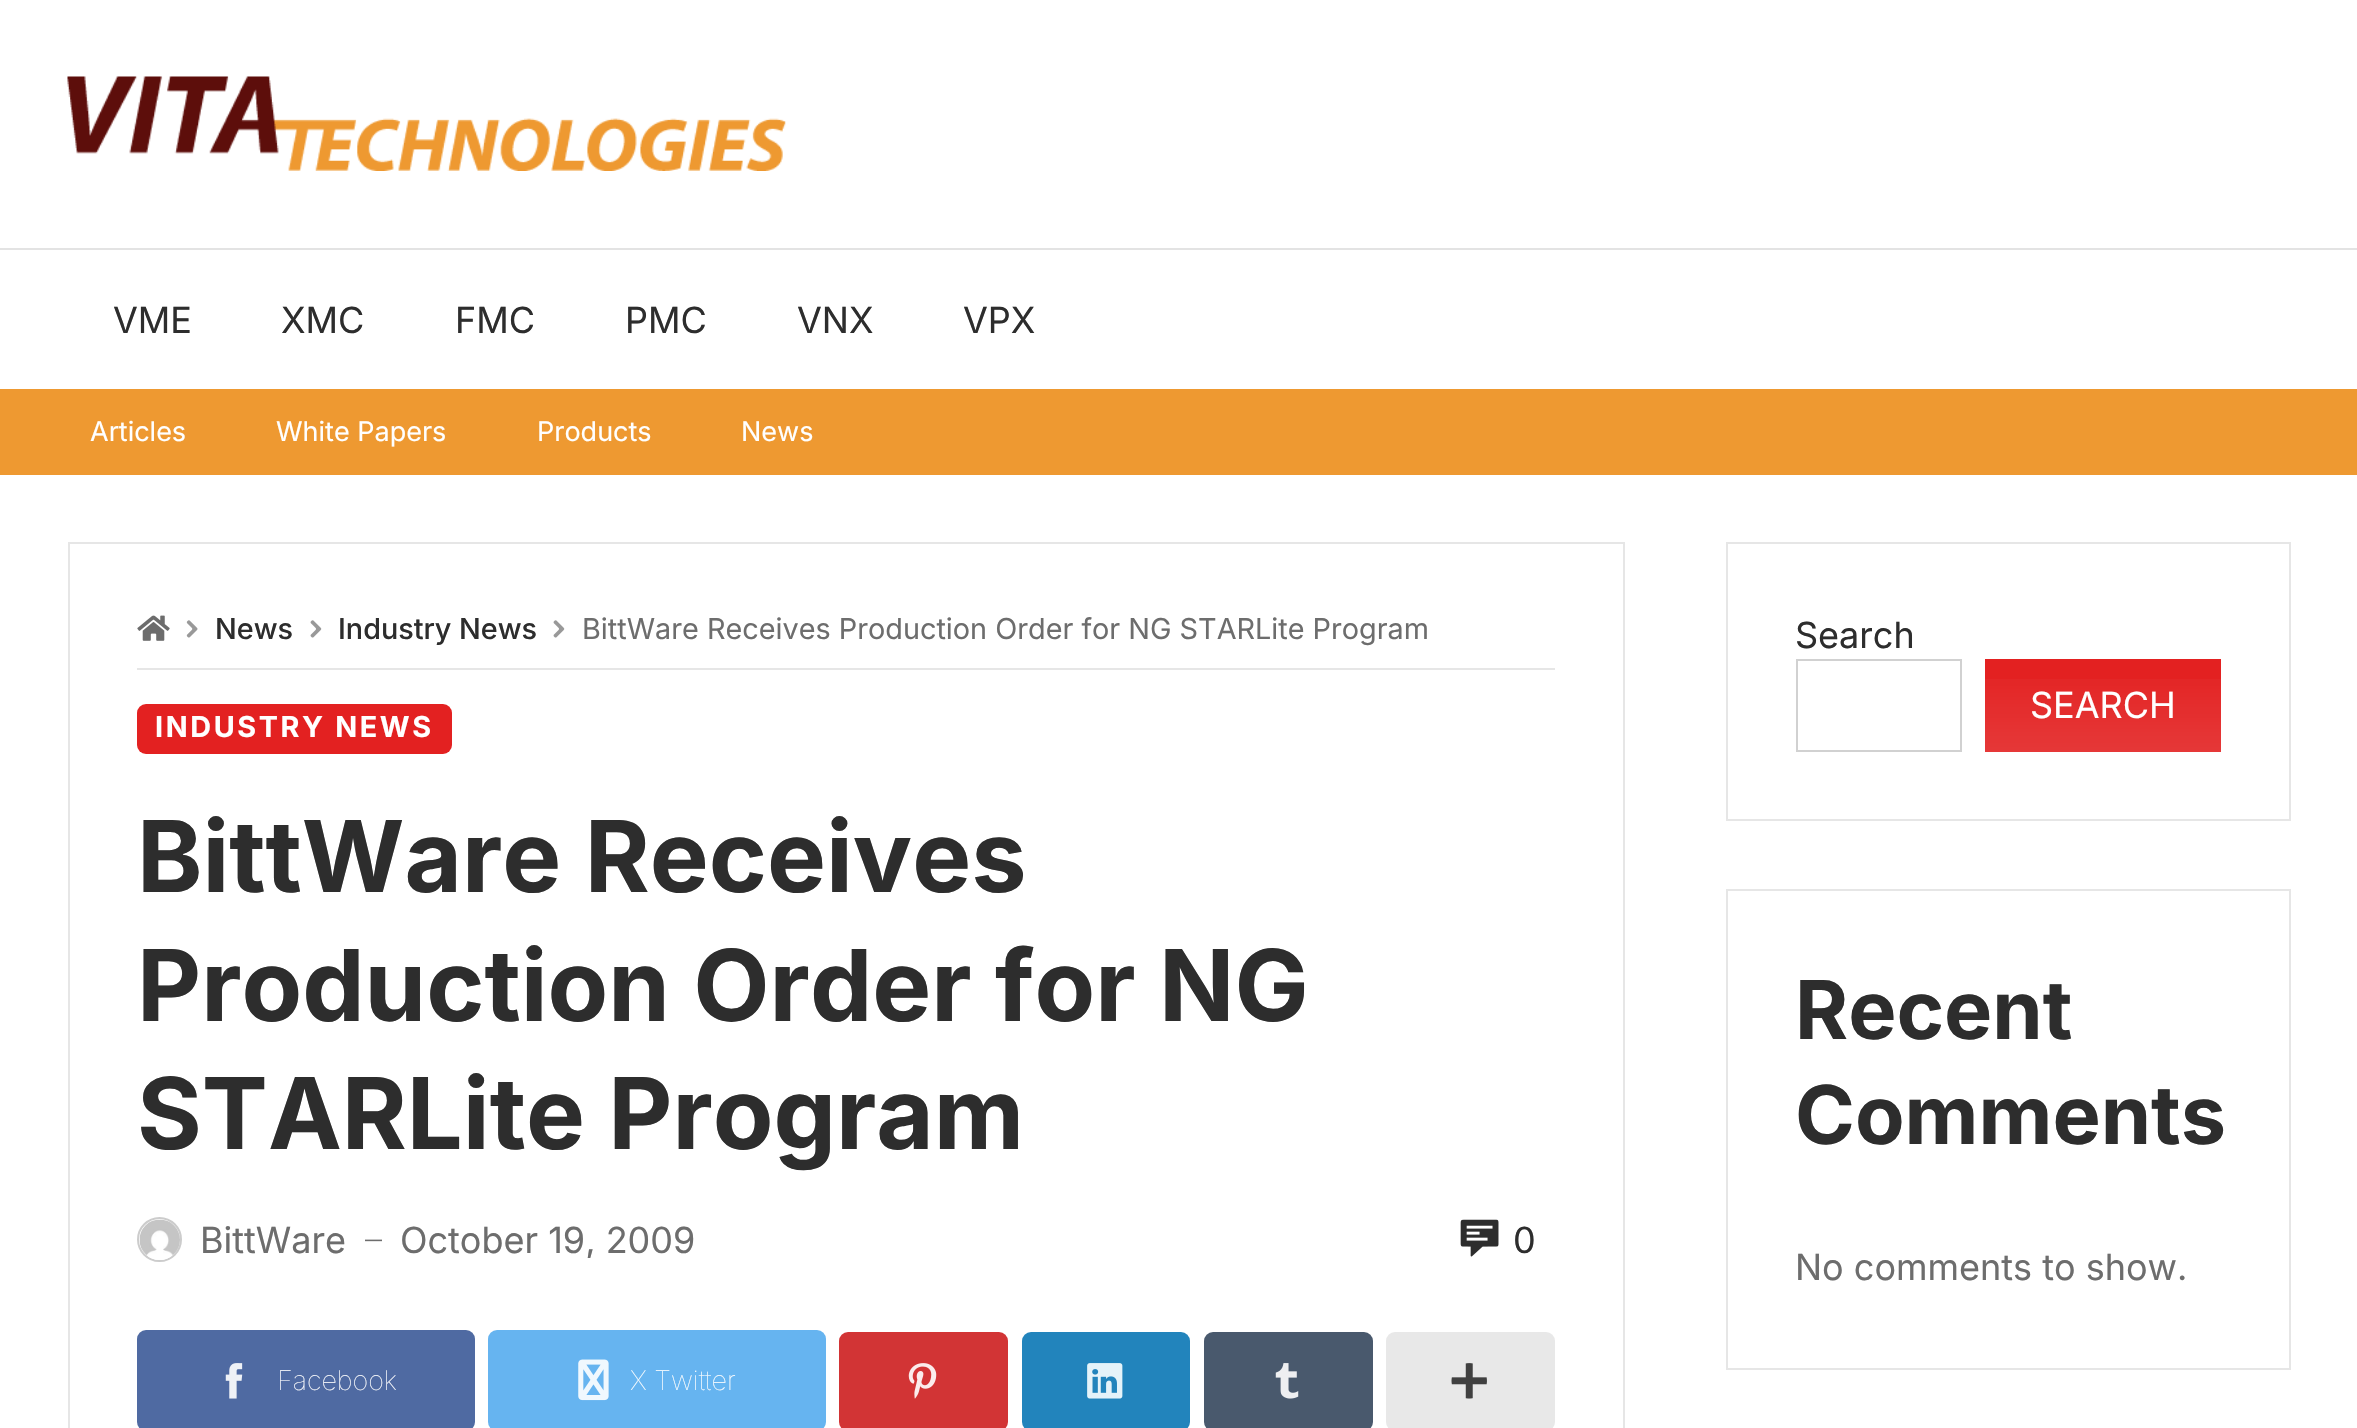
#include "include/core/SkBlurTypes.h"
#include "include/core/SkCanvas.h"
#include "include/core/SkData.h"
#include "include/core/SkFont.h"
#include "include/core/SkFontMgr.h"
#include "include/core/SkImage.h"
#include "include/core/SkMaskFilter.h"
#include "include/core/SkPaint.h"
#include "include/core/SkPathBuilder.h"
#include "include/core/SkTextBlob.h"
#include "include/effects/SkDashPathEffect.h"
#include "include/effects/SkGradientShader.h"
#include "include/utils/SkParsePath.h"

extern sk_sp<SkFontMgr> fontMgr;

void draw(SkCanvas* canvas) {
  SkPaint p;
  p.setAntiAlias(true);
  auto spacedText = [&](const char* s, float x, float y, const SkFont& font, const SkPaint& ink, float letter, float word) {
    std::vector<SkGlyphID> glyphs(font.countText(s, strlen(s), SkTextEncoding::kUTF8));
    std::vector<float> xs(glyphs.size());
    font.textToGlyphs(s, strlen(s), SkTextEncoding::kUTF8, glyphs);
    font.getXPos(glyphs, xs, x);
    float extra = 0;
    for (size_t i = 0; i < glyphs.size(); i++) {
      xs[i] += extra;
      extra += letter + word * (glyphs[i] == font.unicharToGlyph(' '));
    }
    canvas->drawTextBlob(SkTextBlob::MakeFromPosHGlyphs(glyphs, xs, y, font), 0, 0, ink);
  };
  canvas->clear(SK_ColorWHITE);
  p.setColor(SkColorSetRGB(227, 227, 227));
  canvas->drawRect(SkRect::MakeLTRB(0, 248, 2357, 250), p);
  canvas->drawImageRect(SkImages::DeferredFromEncodedData(SkData::MakeFromFileName("images/1.png")), SkRect::MakeLTRB(67, 76, 786, 171), SkSamplingOptions());
  p.setColor(SkColorSetRGB(238, 153, 49));
  canvas->drawRect(SkRect::MakeLTRB(0, 389, 2357, 475), p);
  p.setStyle(SkPaint::kStroke_Style);
  p.setStrokeWidth(2);
  p.setColor(SkColorSetRGB(230, 230, 230));
  canvas->drawRect(SkRect::MakeLTRB(69, 543, 1624, 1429), p);
  p.setStyle(SkPaint::kFill_Style);
  canvas->drawRect(SkRect::MakeLTRB(137, 668, 1555, 670), p);
  canvas->drawImageRect(SkImages::DeferredFromEncodedData(SkData::MakeFromFileName("images/2.png")), SkRect::MakeLTRB(137, 615, 170, 641), SkSamplingOptions());
  canvas->drawImageRect(SkImages::DeferredFromEncodedData(SkData::MakeFromFileName("images/3.png")), SkRect::MakeLTRB(186, 620, 198, 638), SkSamplingOptions());
  canvas->drawImageRect(SkImages::DeferredFromEncodedData(SkData::MakeFromFileName("images/4.png")), SkRect::MakeLTRB(310, 620, 322, 638), SkSamplingOptions());
  canvas->drawImageRect(SkImages::DeferredFromEncodedData(SkData::MakeFromFileName("images/4.png")), SkRect::MakeLTRB(553, 620, 565, 638), SkSamplingOptions());
  p.setColor(SkColorSetRGB(227, 33, 33));
  canvas->drawRoundRect(SkRect::MakeLTRB(137, 704, 452, 754), 9, 9, p);
  p.setStyle(SkPaint::kStroke_Style);
  p.setColor(SkColorSetRGB(204, 204, 204));
  canvas->drawCircle(159.5f, 1239.5f, 21.5f, p);
  canvas->drawImageRect(SkImages::DeferredFromEncodedData(SkData::MakeFromFileName("images/5.png")), SkRect::MakeLTRB(139, 1219, 180, 1260), SkSamplingOptions());
  canvas->drawImageRect(SkImages::DeferredFromEncodedData(SkData::MakeFromFileName("images/6.png")), SkRect::MakeLTRB(1460, 1219, 1499, 1257), SkSamplingOptions());
  p.setStyle(SkPaint::kFill_Style);
  p.setColor(SkColorSetRGB(79, 106, 162));
  canvas->drawRoundRect(SkRect::MakeLTRB(137, 1330, 475, 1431), 9, 9, p);
  canvas->drawImageRect(SkImages::DeferredFromEncodedData(SkData::MakeFromFileName("images/7.png")), SkRect::MakeLTRB(225, 1363, 243, 1399), SkSamplingOptions());
  p.setColor(SkColorSetRGB(102, 180, 240));
  canvas->drawRoundRect(SkRect::MakeLTRB(488, 1330, 826, 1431), 9, 9, p);
  canvas->drawImageRect(SkImages::DeferredFromEncodedData(SkData::MakeFromFileName("images/8.png")), SkRect::MakeLTRB(578, 1359, 609, 1401), SkSamplingOptions());
  p.setColor(SkColorSetRGB(210, 52, 53));
  canvas->drawRoundRect(SkRect::MakeLTRB(839, 1332, 1008, 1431), 9, 9, p);
  canvas->drawImageRect(SkImages::DeferredFromEncodedData(SkData::MakeFromFileName("images/9.png")), SkRect::MakeLTRB(908, 1363, 937, 1399), SkSamplingOptions());
  p.setColor(SkColorSetRGB(34, 132, 188));
  canvas->drawRoundRect(SkRect::MakeLTRB(1022, 1332, 1190, 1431), 9, 9, p);
  canvas->drawImageRect(SkImages::DeferredFromEncodedData(SkData::MakeFromFileName("images/10.png")), SkRect::MakeLTRB(1087, 1363, 1123, 1399), SkSamplingOptions());
  p.setColor(SkColorSetRGB(73, 89, 109));
  canvas->drawRoundRect(SkRect::MakeLTRB(1204, 1332, 1373, 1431), 9, 9, p);
  canvas->drawImageRect(SkImages::DeferredFromEncodedData(SkData::MakeFromFileName("images/11.png")), SkRect::MakeLTRB(1275, 1363, 1299, 1399), SkSamplingOptions());
  p.setColor(SkColorSetRGB(232, 232, 232));
  canvas->drawRoundRect(SkRect::MakeLTRB(1386, 1332, 1555, 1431), 9, 9, p);
  canvas->drawImageRect(SkImages::DeferredFromEncodedData(SkData::MakeFromFileName("images/12.png")), SkRect::MakeLTRB(1451, 1363, 1487, 1399), SkSamplingOptions());
  p.setStyle(SkPaint::kStroke_Style);
  p.setColor(SkColorSetRGB(230, 230, 230));
  canvas->drawRect(SkRect::MakeLTRB(1727, 543, 2290, 820), p);
  p.setColor(SkColorSetRGB(209, 209, 209));
  canvas->drawRect(SkRect::MakeLTRB(1797, 660, 1961, 751), p);
  p.setStyle(SkPaint::kFill_Style);
  p.setColor(SkColorSetRGB(227, 33, 33));
  canvas->drawRect(SkRect::MakeLTRB(1985, 659, 2221, 752), p);
  {
    const SkColor colors[] = {SkColorSetARGB(0, 255, 255, 255), SkColorSetARGB(26, 255, 255, 255)};
    const float stops[] = {0, 1};
    const SkPoint ends[] = {{2103, 659}, {2103, 752}};
    p.setShader(SkGradientShader::MakeLinear(ends, colors, stops, 2, SkTileMode::kClamp));
    p.setAlpha(255);
  }
  canvas->drawRect(SkRect::MakeLTRB(1985, 679, 2221, 752), p);
  p.setStyle(SkPaint::kStroke_Style);
  p.setShader(nullptr);
  p.setColor(SkColorSetRGB(230, 230, 230));
  canvas->drawRect(SkRect::MakeLTRB(1727, 890, 2290, 1369), p);
  SkFont font1(fontMgr->matchFamilyStyle("Inter", SkFontStyle::Normal()), 36);
  font1.setSubpixel(true);
  p.setStyle(SkPaint::kFill_Style);
  p.setColor(SkColorSetRGB(45, 45, 45));
  canvas->drawString("VME", 113, 333, font1, p);
  canvas->drawString("XMC", 281, 333, font1, p);
  canvas->drawString("FMC", 455, 333, font1, p);
  canvas->drawString("PMC", 625, 333, font1, p);
  canvas->drawString("VNX", 797, 333, font1, p);
  canvas->drawString("VPX", 963, 333, font1, p);
  SkFont font2(fontMgr->matchFamilyStyle("Inter", SkFontStyle::Normal()), 27);
  font2.setSubpixel(true);
  p.setColor(SK_ColorWHITE);
  canvas->drawString("Articles", 90, 441, font2, p);
  canvas->drawString("White Papers", 276, 441, font2, p);
  canvas->drawString("Products", 537, 441, font2, p);
  canvas->drawString("News", 741, 441, font2, p);
  SkFont font3(fontMgr->matchFamilyStyle("Inter", SkFontStyle(500, SkFontStyle::kNormal_Width, SkFontStyle::kUpright_Slant)), 28.8f);
  font3.setSubpixel(true);
  p.setColor(SkColorSetRGB(45, 45, 45));
  canvas->drawString("News", 215, 639, font3, p);
  canvas->drawString("Industry News", 338, 639, font3, p);
  SkFont font4(fontMgr->matchFamilyStyle("Inter", SkFontStyle::Normal()), 28.8f);
  font4.setSubpixel(true);
  p.setColor(SkColorSetRGB(109, 109, 109));
  canvas->drawString("BittWare Receives Production Order for NG STARLite Program", 582, 639, font4, p);
  SkFont font5(fontMgr->matchFamilyStyle("Inter", SkFontStyle::Bold()), 28.8f);
  font5.setSubpixel(true);
  p.setColor(SK_ColorWHITE);
  spacedText("INDUSTRY NEWS", 155, 737, font5, p, 2.6f, 0);
  SkFont font6(fontMgr->matchFamilyStyle("Inter", SkFontStyle::Bold()), 99);
  font6.setSubpixel(true);
  p.setColor(SkColorSetRGB(45, 45, 45));
  canvas->drawString("BittWare Receives", 137, 892, font6, p);
  canvas->drawString("Production Order for NG", 137, 1021, font6, p);
  canvas->drawString("STARLite Program", 137, 1149, font6, p);
  p.setColor(SkColorSetRGB(109, 109, 109));
  canvas->drawString("BittWare", 200, 1253, font1, p);
  canvas->save();
  canvas->clipRect(SkRect::MakeLTRB(365, 1222, 383, 1258));
  SkFont font7(fontMgr->matchFamilyStyle("Inter", SkFontStyle::Normal()), 18);
  font7.setSubpixel(true);
  canvas->drawString("—", 364, 1246, font7, p);
  canvas->restore();
  canvas->save();
  canvas->clipRect(SkRect::MakeLTRB(401, 1222, 695, 1258));
  canvas->drawString("October 19, 2009", 400, 1253, font1, p);
  canvas->restore();
  p.setColor(SkColorSetRGB(45, 45, 45));
  canvas->drawString("0", 1513, 1253, font1, p);
  SkFont font8(fontMgr->matchFamilyStyle("Inter", SkFontStyle(100, SkFontStyle::kNormal_Width, SkFontStyle::kUpright_Slant)), 27);
  font8.setSubpixel(true);
  p.setColor(SK_ColorWHITE);
  canvas->drawString("Facebook", 277, 1390, font8, p);
  canvas->drawString("X Twitter", 630, 1390, font8, p);
  p.setColor(SkColorSetRGB(45, 45, 45));
  canvas->drawString("Search", 1795, 648, font1, p);
  p.setColor(SK_ColorWHITE);
  canvas->drawString("SEARCH", 2030, 718, font1, p);
  SkFont font9(fontMgr->matchFamilyStyle("Inter", SkFontStyle::Bold()), 81);
  font9.setSubpixel(true);
  p.setColor(SkColorSetRGB(45, 45, 45));
  canvas->drawString("Recent", 1795, 1039, font9, p);
  canvas->drawString("Comments", 1795, 1144, font9, p);
  p.setColor(SkColorSetRGB(109, 109, 109));
  canvas->drawString("No comments to show.", 1795, 1280, font1, p);
}
